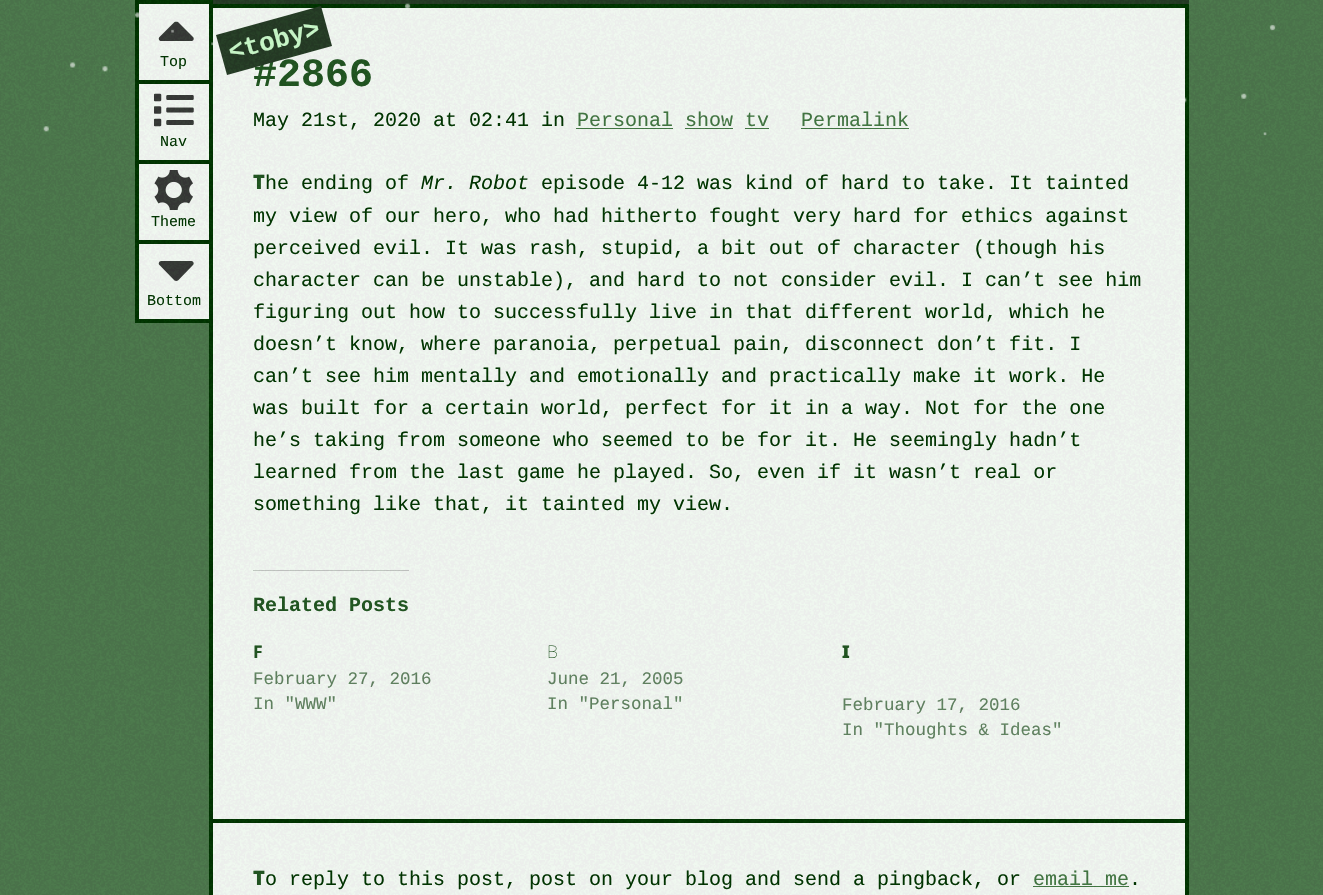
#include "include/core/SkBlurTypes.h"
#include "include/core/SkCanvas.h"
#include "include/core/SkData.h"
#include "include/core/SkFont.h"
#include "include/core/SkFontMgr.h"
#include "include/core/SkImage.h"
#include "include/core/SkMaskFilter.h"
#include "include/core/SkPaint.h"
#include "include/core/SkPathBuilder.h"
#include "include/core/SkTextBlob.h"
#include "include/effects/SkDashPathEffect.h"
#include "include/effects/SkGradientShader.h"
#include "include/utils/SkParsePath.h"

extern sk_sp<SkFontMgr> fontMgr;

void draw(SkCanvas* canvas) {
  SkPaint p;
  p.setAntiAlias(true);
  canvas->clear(SkColorSetRGB(78, 120, 78));
  p.setColor(SkColorSetRGB(38, 58, 38));
  canvas->drawRect(SkRect::MakeLTRB(209, 0, 1189, 4), p);
  p.setColor(SkColorSetRGB(0, 51, 0));
  canvas->drawRect(SkRect::MakeLTRB(209, 4, 1189, 895), p);
  p.setColor(SkColorSetRGB(251, 253, 251));
  canvas->drawRect(SkRect::MakeLTRB(137, 82, 211, 162), p);
  p.setStyle(SkPaint::kStroke_Style);
  p.setStrokeWidth(4);
  p.setColor(SkColorSetRGB(0, 51, 0));
  canvas->drawRect(SkRect::MakeLTRB(137, 82, 211, 162), p);
  p.setStyle(SkPaint::kFill_Style);
  p.setColor(SkColorSetRGB(251, 253, 251));
  canvas->drawRect(SkRect::MakeLTRB(137, 2, 211, 82), p);
  p.setStyle(SkPaint::kStroke_Style);
  p.setColor(SkColorSetRGB(0, 51, 0));
  canvas->drawRect(SkRect::MakeLTRB(137, 2, 211, 82), p);
  p.setStyle(SkPaint::kFill_Style);
  p.setColor(SkColorSetRGB(56, 56, 56));
  canvas->drawPath(SkPathBuilder().moveTo(191.5f, 41).lineTo(161, 41).cubicTo(159, 41, 158, 38.5f, 159.5f, 37).lineTo(174.5f, 22).cubicTo(175.5f, 21.5f, 177, 21.5f, 178, 22).lineTo(193, 37).cubicTo(194.5f, 38.5f, 193.5f, 41, 191.5f, 41).close().detach(), p);
  p.setColor(SkColorSetRGB(251, 253, 251));
  canvas->drawRect(SkRect::MakeLTRB(213, 8, 1185, 819), p);
  p.setColor(SkColorSetRGB(68, 119, 68));
  canvas->drawRect(SkRect::MakeLTRB(576, 128, 673, 129), p);
  canvas->drawRect(SkRect::MakeLTRB(685, 128, 733, 129), p);
  canvas->drawRect(SkRect::MakeLTRB(745, 128, 769, 129), p);
  canvas->drawRect(SkRect::MakeLTRB(801, 128, 909, 129), p);
  p.setColor(SkColorSetRGB(201, 202, 201));
  canvas->drawRect(SkRect::MakeLTRB(253, 570, 409, 571), p);
  p.setColor(SkColorSetRGB(251, 253, 251));
  canvas->drawRect(SkRect::MakeLTRB(213, 823, 1185, 895), p);
  p.setColor(SkColorSetRGB(68, 119, 68));
  canvas->drawRect(SkRect::MakeLTRB(1033, 886, 1129, 887), p);
  canvas->drawImageRect(SkImages::DeferredFromEncodedData(SkData::MakeFromFileName("images/3.png")), SkRect::MakeLTRB(154, 93, 194, 127), SkSamplingOptions());
  p.setColor(SkColorSetRGB(251, 253, 251));
  canvas->drawRect(SkRect::MakeLTRB(137, 162, 211, 242), p);
  p.setStyle(SkPaint::kStroke_Style);
  p.setColor(SkColorSetRGB(0, 51, 0));
  canvas->drawRect(SkRect::MakeLTRB(137, 162, 211, 242), p);
  canvas->drawImageRect(SkImages::DeferredFromEncodedData(SkData::MakeFromFileName("images/4.png")), SkRect::MakeLTRB(154, 170, 193, 210), SkSamplingOptions());
  p.setStyle(SkPaint::kFill_Style);
  p.setColor(SkColorSetRGB(251, 253, 251));
  canvas->drawRect(SkRect::MakeLTRB(137, 242, 211, 321), p);
  p.setStyle(SkPaint::kStroke_Style);
  p.setColor(SkColorSetRGB(0, 51, 0));
  canvas->drawRect(SkRect::MakeLTRB(137, 242, 211, 321), p);
  p.setStyle(SkPaint::kFill_Style);
  p.setColor(SkColorSetRGB(56, 56, 56));
  canvas->drawPath(SkPathBuilder().moveTo(161, 261).lineTo(191.5f, 261).cubicTo(193.5f, 261, 194.5f, 264, 193, 265).lineTo(178, 280.5f).cubicTo(177, 281, 175.5f, 281, 174.5f, 280.5f).lineTo(159.5f, 265).cubicTo(158, 264, 159, 261, 161, 261).close().detach(), p);
  SkFont font1(fontMgr->matchFamilyStyle("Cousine", SkFontStyle::Normal()), 15);
  font1.setSubpixel(true);
  p.setColor(SkColorSetRGB(0, 51, 0));
  canvas->drawString("Top", 160, 66, font1, p);
  SkFont font2(fontMgr->matchFamilyStyle("Cousine", SkFontStyle::Bold()), 40);
  font2.setSubpixel(true);
  p.setColor(SkColorSetRGB(34, 85, 34));
  canvas->drawString("#2866", 253, 86, font2, p);
  p.setColor(SkColorSetRGB(38, 58, 38));
  canvas->drawPath(SkPathBuilder().moveTo(216, 35).lineTo(321, 6).lineTo(332, 46).lineTo(227, 75).close().detach(), p);
  SkFont font3(fontMgr->matchFamilyStyle("Cousine", SkFontStyle::Bold()), 26);
  font3.setSubpixel(true);
  p.setColor(SkColorSetRGB(209, 255, 209));
  canvas->save();
  canvas->rotate(-15, 231, 60);
  canvas->drawString("<toby>", 231, 60, font3, p);
  canvas->restore();
  SkFont font4(fontMgr->matchFamilyStyle("Cousine", SkFontStyle::Normal()), 20);
  font4.setSubpixel(true);
  p.setColor(SkColorSetRGB(0, 51, 0));
  canvas->drawString("May 21st, 2020 at 02:41 in", 253, 126, font4, p);
  p.setColor(SkColorSetRGB(68, 119, 68));
  canvas->drawString("Personal show tv", 577, 126, font4, p);
  canvas->drawString("Permalink", 801, 126, font4, p);
  canvas->drawImageRect(SkImages::DeferredFromEncodedData(SkData::MakeFromFileName("images/2.png")), SkRect::MakeLTRB(43, 3, 1276, 136), SkSamplingOptions());
  SkFont font5(fontMgr->matchFamilyStyle("Noto Sans", SkFontStyle(900, SkFontStyle::kNormal_Width, SkFontStyle::kUpright_Slant)), 20);
  font5.setSubpixel(true);
  p.setColor(SkColorSetRGB(34, 85, 34));
  canvas->drawString("T", 253, 189, font5, p);
  p.setColor(SkColorSetRGB(0, 51, 0));
  canvas->drawString("he ending of", 265, 189, font4, p);
  SkFont font6(fontMgr->matchFamilyStyle("Cousine", SkFontStyle::Italic()), 20);
  font6.setSubpixel(true);
  canvas->drawString("Mr. Robot", 421, 189, font6, p);
  canvas->drawString("episode 4-12 was kind of hard to take. It tainted", 541, 189, font4, p);
  canvas->drawString("my view of our hero, who had hitherto fought very hard for ethics against", 253, 222, font4, p);
  canvas->drawString("perceived evil. It was rash, stupid, a bit out of character (though his", 253, 254, font4, p);
  canvas->drawString("character can be unstable), and hard to not consider evil. I can’t see him", 253, 286, font4, p);
  canvas->drawString("figuring out how to successfully live in that different world, which he", 253, 318, font4, p);
  canvas->drawString("doesn’t know, where paranoia, perpetual pain, disconnect don’t fit. I", 253, 350, font4, p);
  canvas->drawString("can’t see him mentally and emotionally and practically make it work. He", 253, 382, font4, p);
  canvas->drawString("was built for a certain world, perfect for it in a way. Not for the one", 253, 414, font4, p);
  canvas->drawString("he’s taking from someone who seemed to be for it. He seemingly hadn’t", 253, 446, font4, p);
  canvas->drawString("learned from the last game he played. So, even if it wasn’t real or", 253, 478, font4, p);
  canvas->drawString("something like that, it tainted my view.", 253, 510, font4, p);
  SkFont font7(fontMgr->matchFamilyStyle("Cousine", SkFontStyle::Bold()), 20);
  font7.setSubpixel(true);
  p.setColor(SkColorSetRGB(34, 85, 34));
  canvas->drawString("Related Posts", 253, 611, font7, p);
  SkFont font8(fontMgr->matchFamilyStyle("Noto Sans", SkFontStyle::Bold()), 17.5f);
  font8.setSubpixel(true);
  canvas->drawString("F", 253, 658, font8, p);
  SkFont font9(fontMgr->matchFamilyStyle("Cousine", SkFontStyle::Normal()), 17.5f);
  font9.setSubpixel(true);
  p.setColor(SkColorSetRGB(100, 132, 100));
  canvas->drawString("February 27, 2016", 253, 684, font9, p);
  canvas->drawString("In \"WWW\"", 253, 709, font9, p);
  SkFont font10(fontMgr->matchFamilyStyle("Noto Sans", SkFontStyle(100, SkFontStyle::kNormal_Width, SkFontStyle::kUpright_Slant)), 17.5f);
  font10.setSubpixel(true);
  p.setColor(SkColorSetRGB(34, 85, 34));
  canvas->drawString("B", 547, 658, font10, p);
  p.setColor(SkColorSetRGB(100, 132, 100));
  canvas->drawString("June 21, 2005", 547, 684, font9, p);
  canvas->drawString("In \"Personal\"", 547, 709, font9, p);
  SkFont font11(fontMgr->matchFamilyStyle("Noto Sans", SkFontStyle(900, SkFontStyle::kNormal_Width, SkFontStyle::kUpright_Slant)), 17.5f);
  font11.setSubpixel(true);
  p.setColor(SkColorSetRGB(34, 85, 34));
  canvas->drawString("I", 842, 658, font11, p);
  p.setColor(SkColorSetRGB(100, 132, 100));
  canvas->drawString("February 17, 2016", 842, 710, font9, p);
  canvas->drawString("In \"Thoughts & Ideas\"", 842, 735, font9, p);
  p.setColor(SkColorSetRGB(34, 85, 34));
  canvas->drawString("T", 253, 885, font5, p);
  p.setColor(SkColorSetRGB(0, 51, 0));
  canvas->drawString("o reply to this post, post on your blog and send a pingback, or", 265, 885, font4, p);
  p.setColor(SkColorSetRGB(68, 119, 68));
  canvas->drawString("email me", 1033, 885, font4, p);
  p.setColor(SkColorSetRGB(0, 51, 0));
  canvas->drawString(".", 1129, 885, font4, p);
  canvas->drawString("Nav", 160, 146, font1, p);
  canvas->drawString("Theme", 151, 226, font1, p);
  canvas->drawString("Bottom", 147, 305, font1, p);
  canvas->drawImageRect(SkImages::DeferredFromEncodedData(SkData::MakeFromFileName("images/1.png")), SkRect::MakeLTRB(0, 0, 1323, 895), SkSamplingOptions());
}
